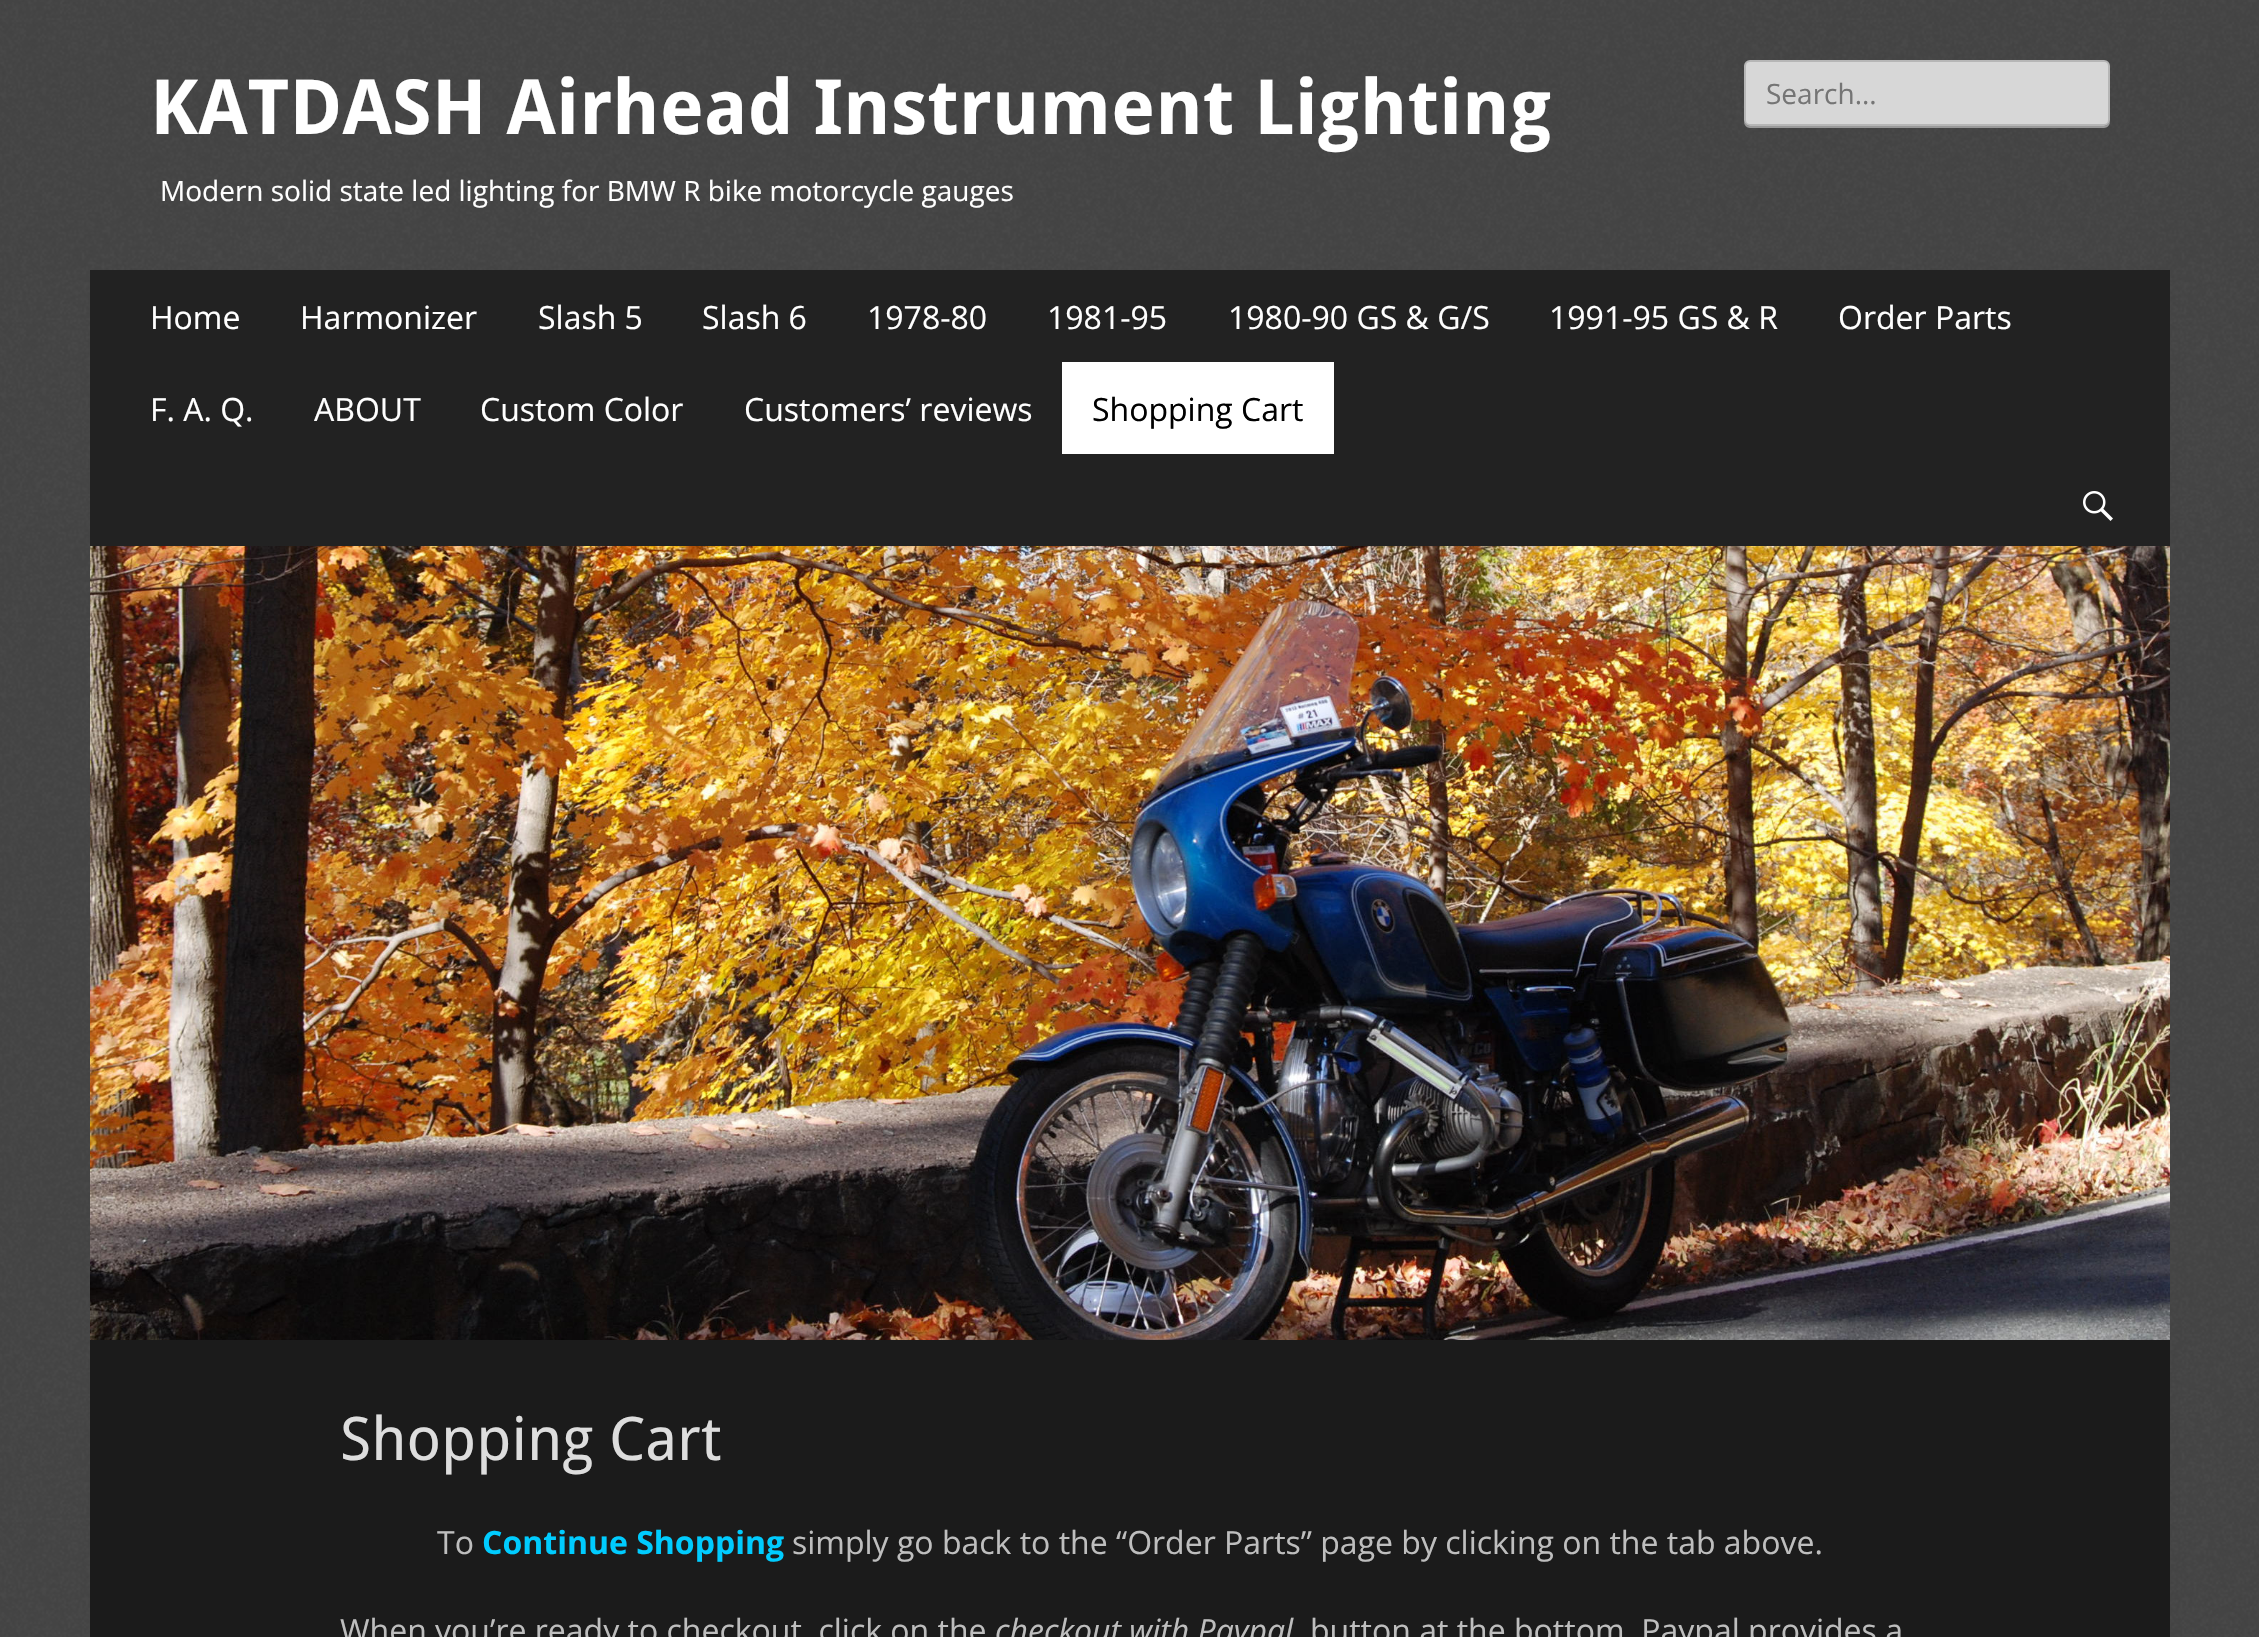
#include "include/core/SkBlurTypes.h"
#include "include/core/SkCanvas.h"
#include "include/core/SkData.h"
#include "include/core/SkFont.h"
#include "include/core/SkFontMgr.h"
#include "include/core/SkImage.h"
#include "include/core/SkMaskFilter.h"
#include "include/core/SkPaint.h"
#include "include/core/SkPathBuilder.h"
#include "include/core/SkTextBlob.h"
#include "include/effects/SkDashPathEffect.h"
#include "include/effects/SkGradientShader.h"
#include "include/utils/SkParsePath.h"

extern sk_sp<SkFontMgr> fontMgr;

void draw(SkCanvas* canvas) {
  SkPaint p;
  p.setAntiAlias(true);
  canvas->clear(SK_ColorWHITE);
  canvas->drawImageRect(SkImages::DeferredFromEncodedData(SkData::MakeFromFileName("images/1.png")), SkRect::MakeLTRB(0, 0, 2259, 1637), SkSamplingOptions());
  p.setColor(SkColorSetRGB(153, 153, 153));
  canvas->drawPath(SkPathBuilder().moveTo(1744, 120).lineTo(1744, 122).cubicTo(1744, 125, 1747, 128, 1750, 128).lineTo(2104, 128).cubicTo(2107, 128, 2110, 125, 2110, 122).lineTo(2110, 120).cubicTo(2110, 123, 2107, 126, 2104, 126).lineTo(1750, 126).cubicTo(1747, 126, 1744, 123, 1744, 120).close().detach(), p);
  p.setColor(SkColorSetRGB(215, 215, 215));
  canvas->drawRoundRect(SkRect::MakeLTRB(1745, 61, 2109, 125), 5, 5, p);
  p.setStyle(SkPaint::kStroke_Style);
  p.setStrokeWidth(2);
  p.setColor(SkColorSetRGB(182, 182, 182));
  canvas->drawRoundRect(SkRect::MakeLTRB(1745, 61, 2109, 125), 5, 5, p);
  p.setStyle(SkPaint::kFill_Style);
  p.setColor(SkColorSetRGB(34, 34, 34));
  canvas->drawRect(SkRect::MakeLTRB(90, 270, 2170, 546), p);
  p.setColor(SK_ColorWHITE);
  canvas->drawRect(SkRect::MakeLTRB(1062, 362, 1334, 454), p);
  canvas->drawImageRect(SkImages::DeferredFromEncodedData(SkData::MakeFromFileName("images/2.png")), SkRect::MakeLTRB(2083, 491, 2113, 521), SkSamplingOptions());
  canvas->drawImageRect(SkImages::DeferredFromEncodedData(SkData::MakeFromFileName("images/3.png")), SkRect::MakeLTRB(90, 546, 2170, 1340), SkSamplingOptions());
  p.setColor(SkColorSetRGB(27, 27, 27));
  canvas->drawRect(SkRect::MakeLTRB(90, 1340, 2170, 1637), p);
  SkFont font1(fontMgr->matchFamilyStyle("Droid Sans", SkFontStyle::Bold()), 76);
  font1.setSubpixel(true);
  p.setColor(SK_ColorWHITE);
  canvas->drawString("KATDASH Airhead Instrument Lighting", 150, 134, font1, p);
  SkFont font2(fontMgr->matchFamilyStyle("Open Sans", SkFontStyle::Normal()), 28);
  font2.setSubpixel(true);
  canvas->drawString("Modern solid state led lighting for BMW R bike motorcycle gauges", 160, 201, font2, p);
  p.setColor(SkColorSetRGB(117, 117, 117));
  canvas->drawString("Search...", 1766, 104, font2, p);
  SkFont font3(fontMgr->matchFamilyStyle("Open Sans", SkFontStyle::Normal()), 32);
  font3.setSubpixel(true);
  p.setColor(SK_ColorWHITE);
  canvas->drawString("Home", 150, 329, font3, p);
  canvas->drawString("Harmonizer", 300, 329, font3, p);
  canvas->drawString("Slash 5", 538, 329, font3, p);
  canvas->drawString("Slash 6", 702, 329, font3, p);
  canvas->drawString("1978-80", 867, 329, font3, p);
  canvas->drawString("1981-95", 1047, 329, font3, p);
  canvas->drawString("1980-90 GS & G/S", 1228, 329, font3, p);
  canvas->drawString("1991-95 GS & R", 1549, 329, font3, p);
  canvas->drawString("Order Parts", 1838, 329, font3, p);
  canvas->drawString("F. A. Q.", 150, 421, font3, p);
  canvas->drawString("ABOUT", 314, 421, font3, p);
  canvas->drawString("Custom Color", 480, 421, font3, p);
  canvas->drawString("Customers’ reviews", 744, 421, font3, p);
  p.setColor(SK_ColorBLACK);
  canvas->drawString("Shopping Cart", 1092, 421, font3, p);
  SkFont font4(fontMgr->matchFamilyStyle("Droid Sans", SkFontStyle::Normal()), 60);
  font4.setSubpixel(true);
  p.setColor(SkColorSetRGB(221, 221, 221));
  canvas->drawString("Shopping Cart", 340, 1460, font4, p);
  p.setColor(SkColorSetRGB(190, 190, 190));
  canvas->drawString("To", 437, 1554, font3, p);
  SkFont font5(fontMgr->matchFamilyStyle("Open Sans", SkFontStyle::Bold()), 32);
  font5.setSubpixel(true);
  p.setColor(SkColorSetRGB(0, 204, 255));
  canvas->drawString("Continue Shopping", 482, 1554, font5, p);
  p.setColor(SkColorSetRGB(190, 190, 190));
  canvas->drawString("simply go back to the “Order Parts” page by clicking on the tab above.", 792, 1554, font3, p);
  canvas->drawString("When you’re ready to checkout, click on the", 340, 1642, font3, p);
  SkFont font6(fontMgr->matchFamilyStyle("Open Sans", SkFontStyle::Italic()), 32);
  font6.setSubpixel(true);
  canvas->drawString("checkout with Paypal", 995, 1642, font6, p);
  canvas->drawString("button at the bottom. Paypal provides a", 1310, 1642, font3, p);
}
